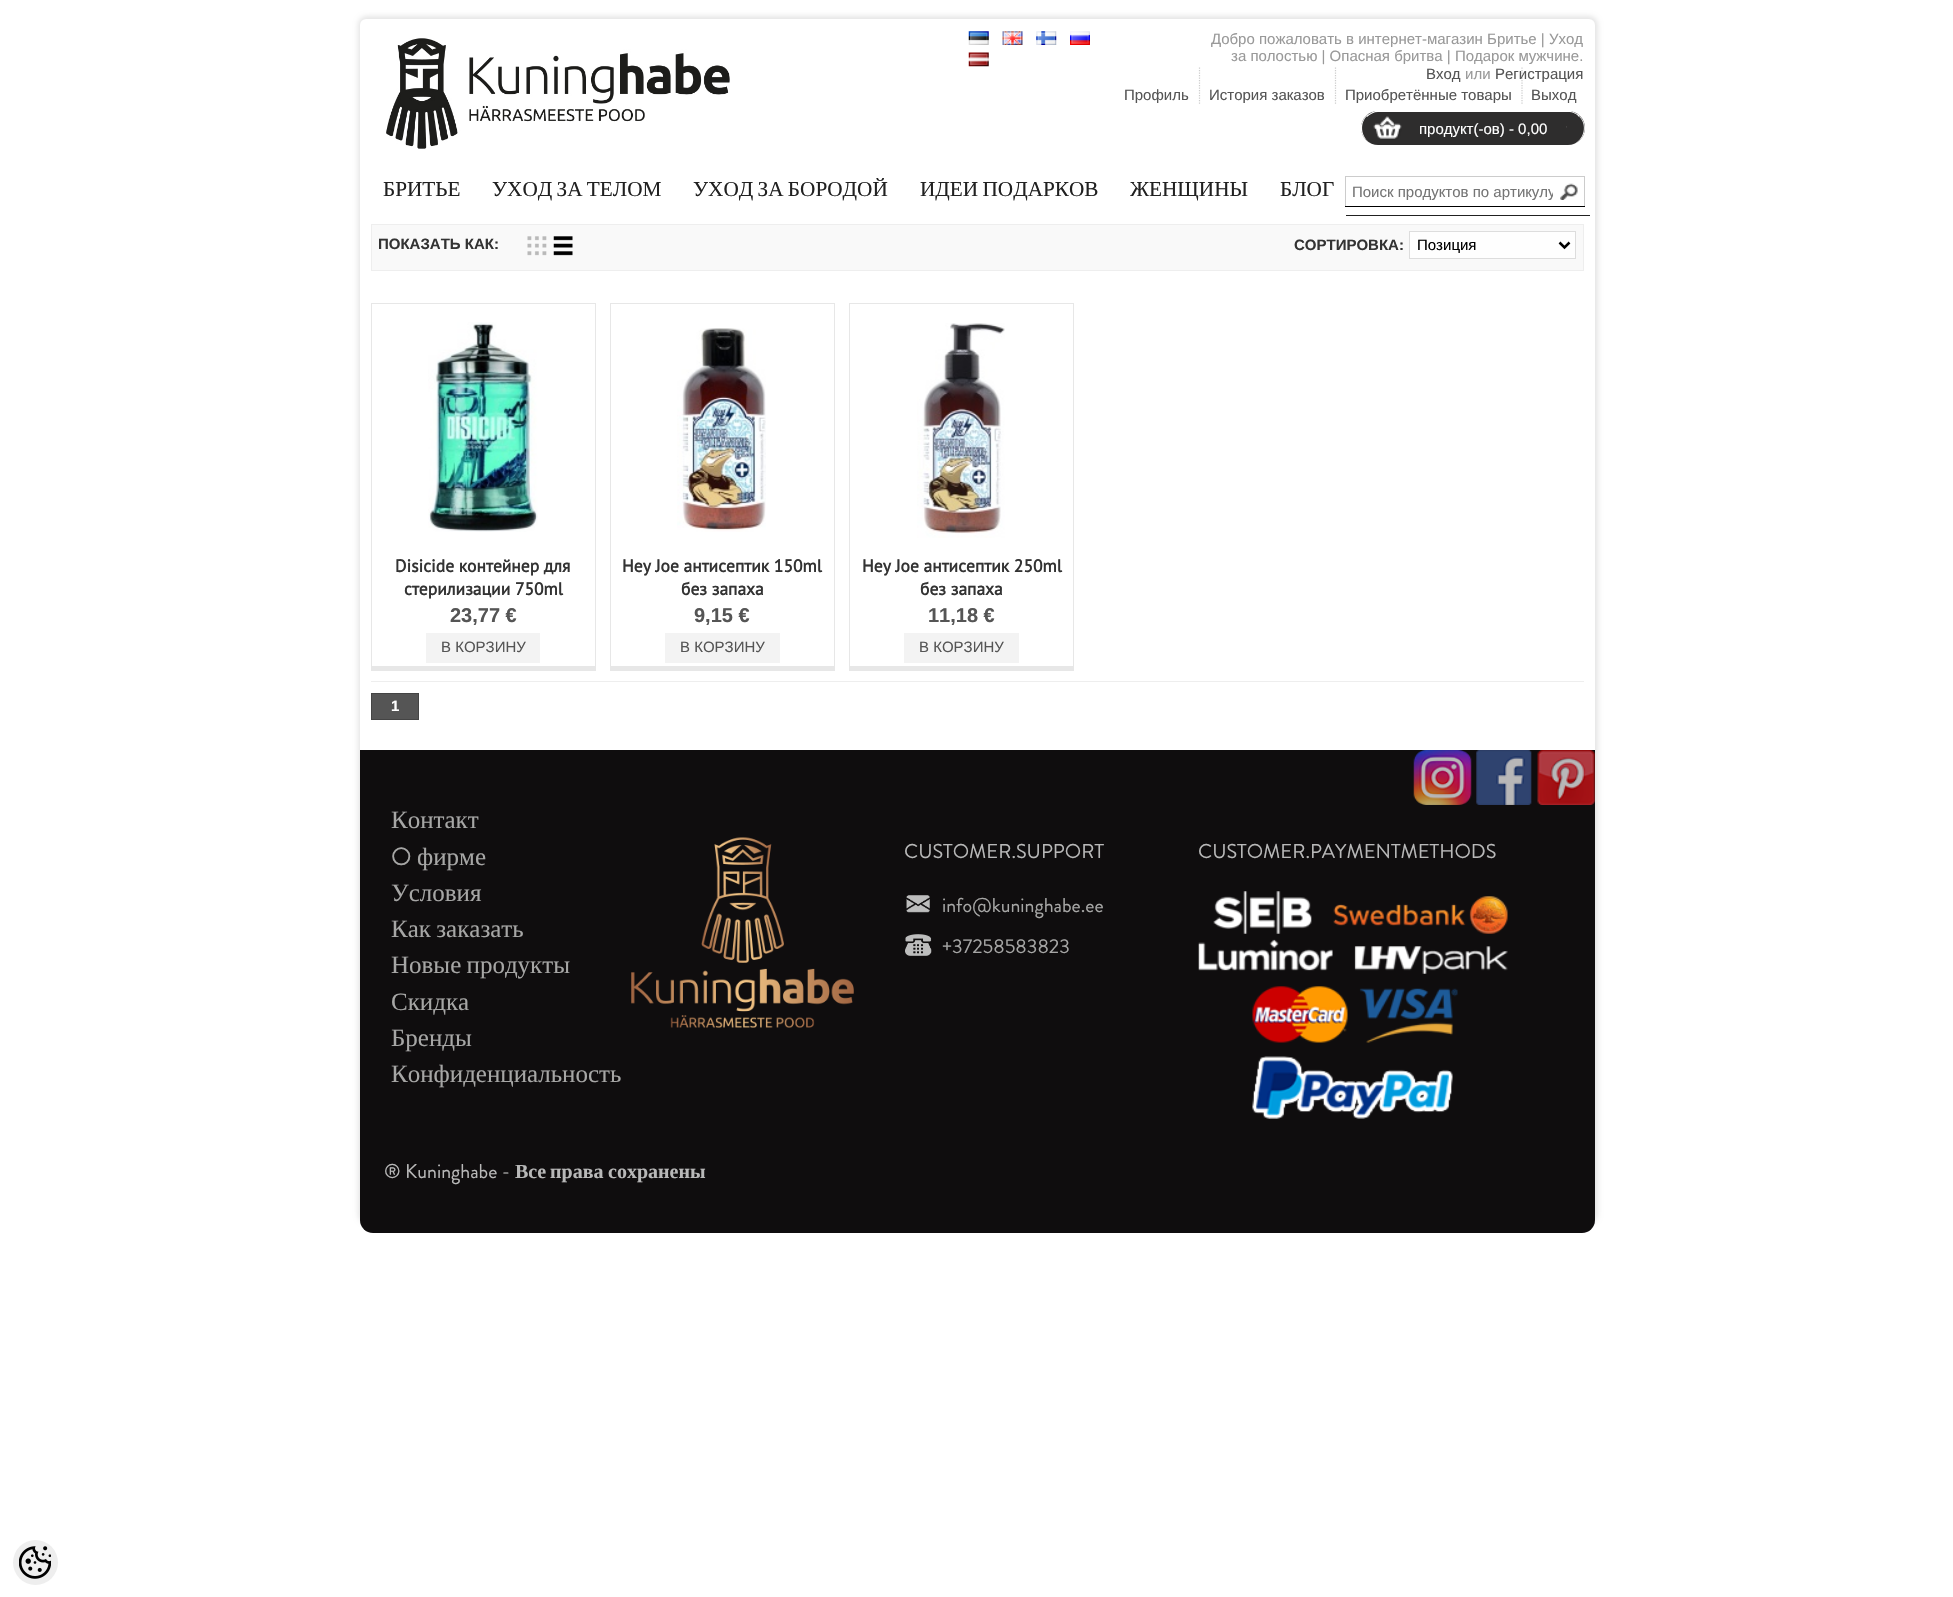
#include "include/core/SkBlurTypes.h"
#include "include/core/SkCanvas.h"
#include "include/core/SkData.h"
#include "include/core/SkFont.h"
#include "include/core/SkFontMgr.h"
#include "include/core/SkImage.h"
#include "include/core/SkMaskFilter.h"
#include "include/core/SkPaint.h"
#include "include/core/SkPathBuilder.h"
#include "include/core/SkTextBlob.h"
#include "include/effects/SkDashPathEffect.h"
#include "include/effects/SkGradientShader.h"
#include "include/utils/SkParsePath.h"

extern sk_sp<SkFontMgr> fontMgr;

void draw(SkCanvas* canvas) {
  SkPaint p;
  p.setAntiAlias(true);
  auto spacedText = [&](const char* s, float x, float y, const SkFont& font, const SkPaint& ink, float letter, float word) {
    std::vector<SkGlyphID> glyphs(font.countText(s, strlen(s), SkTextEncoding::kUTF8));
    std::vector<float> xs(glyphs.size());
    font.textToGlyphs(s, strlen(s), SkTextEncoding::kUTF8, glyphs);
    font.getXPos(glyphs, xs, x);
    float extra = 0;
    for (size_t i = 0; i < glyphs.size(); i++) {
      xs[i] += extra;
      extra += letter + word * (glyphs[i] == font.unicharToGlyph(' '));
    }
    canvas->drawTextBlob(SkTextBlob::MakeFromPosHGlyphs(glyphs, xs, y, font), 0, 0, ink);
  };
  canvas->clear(SK_ColorWHITE);
  p.setColor(SkColorSetARGB(26, 0, 0, 0));
  p.setMaskFilter(SkMaskFilter::MakeBlur(kNormal_SkBlurStyle, 2.5f));
  canvas->drawRoundRect(SkRect::MakeLTRB(358, 16, 1598, 1223), 9, 9, p);
  p.setMaskFilter(nullptr);
  p.setColor(SK_ColorWHITE);
  canvas->drawRoundRect(SkRect::MakeLTRB(360, 19, 1595, 1220), 6, 6, p);
  p.setColor(SkColorSetRGB(33, 33, 33));
  canvas->drawRect(SkRect::MakeLTRB(1346, 215, 1590, 216), p);
  canvas->drawImageRect(SkImages::DeferredFromEncodedData(SkData::MakeFromFileName("images/1.png")), SkRect::MakeLTRB(386, 38, 730, 149), SkSamplingOptions());
  canvas->drawImageRect(SkImages::DeferredFromEncodedData(SkData::MakeFromFileName("images/2.png")), SkRect::MakeLTRB(968, 31, 989, 45), SkSamplingOptions());
  canvas->drawImageRect(SkImages::DeferredFromEncodedData(SkData::MakeFromFileName("images/3.png")), SkRect::MakeLTRB(1002, 31, 1023, 45), SkSamplingOptions());
  canvas->drawImageRect(SkImages::DeferredFromEncodedData(SkData::MakeFromFileName("images/4.png")), SkRect::MakeLTRB(1036, 31, 1057, 45), SkSamplingOptions());
  canvas->drawImageRect(SkImages::DeferredFromEncodedData(SkData::MakeFromFileName("images/5.png")), SkRect::MakeLTRB(1070, 31, 1090, 45), SkSamplingOptions());
  canvas->drawImageRect(SkImages::DeferredFromEncodedData(SkData::MakeFromFileName("images/6.png")), SkRect::MakeLTRB(968, 52, 989, 67), SkSamplingOptions());
  p.setStyle(SkPaint::kStroke_Style);
  p.setStrokeWidth(1.2f);
  p.setColor(SkColorSetRGB(204, 204, 204));
  p.setPathEffect(SkDashPathEffect::Make({{1.25f, 1.25f}}, 0));
  canvas->drawPath(SkPathBuilder().moveTo(1199.5f, 67.5f).lineTo(1199.5f, 104).detach(), p);
  p.setPathEffect(nullptr);
  p.setPathEffect(SkDashPathEffect::Make({{1.25f, 1.25f}}, 0));
  canvas->drawPath(SkPathBuilder().moveTo(1335.5f, 67.5f).lineTo(1335.5f, 104).detach(), p);
  p.setPathEffect(nullptr);
  p.setPathEffect(SkDashPathEffect::Make({{1.25f, 1.25f}}, 0));
  canvas->drawPath(SkPathBuilder().moveTo(1522, 67.5f).lineTo(1522, 104).detach(), p);
  p.setPathEffect(nullptr);
  p.setStyle(SkPaint::kFill_Style);
  p.setColor(SkColorSetRGB(46, 45, 45));
  canvas->drawRoundRect(SkRect::MakeLTRB(1361, 111, 1585, 145), 17, 17, p);
  canvas->drawImageRect(SkImages::DeferredFromEncodedData(SkData::MakeFromFileName("images/7.png")), SkRect::MakeLTRB(1373, 116, 1402, 140), SkSamplingOptions());
  p.setColor(SK_ColorWHITE);
  canvas->drawPath(SkPathBuilder().moveTo(1378, 112).cubicTo(1374, 112, 1370, 114, 1367, 117).lineTo(1366, 116).cubicTo(1369, 114, 1372, 112, 1375, 111).lineTo(1571, 111).cubicTo(1574, 112, 1578, 114, 1580, 116).lineTo(1579, 117).cubicTo(1577, 114, 1573, 112, 1568, 112).close().detach(), p);
  p.setColor(SkColorSetRGB(238, 238, 238));
  canvas->drawPath(SkPathBuilder().moveTo(1580, 116.5f).cubicTo(1590, 126.5f, 1584, 143.5f, 1569.5f, 145).cubicTo(1583, 143.5f, 1588.5f, 126, 1579.5f, 117).close().detach(), p);
  p.setColor(SK_ColorWHITE);
  canvas->drawPath(SkPathBuilder().moveTo(1361, 125).cubicTo(1362, 122, 1363.5f, 118.5f, 1366, 116).lineTo(1366.5f, 116.5f).cubicTo(1357.5f, 126, 1363, 143.5f, 1376.5f, 145).cubicTo(1369, 144, 1362.5f, 138, 1361, 131).close().detach(), p);
  canvas->drawImageRect(SkImages::DeferredFromEncodedData(SkData::MakeFromFileName("images/8.png")), SkRect::MakeLTRB(1566, 126, 1567, 128), SkSamplingOptions());
  p.setColor(SK_ColorBLACK);
  canvas->drawRect(SkRect::MakeLTRB(1345, 206, 1585, 207), p);
  p.setColor(SkColorSetRGB(204, 204, 204));
  canvas->drawRect(SkRect::MakeLTRB(1345, 176, 1585, 177), p);
  canvas->drawRect(SkRect::MakeLTRB(1584, 176, 1585, 206), p);
  canvas->drawRect(SkRect::MakeLTRB(1345, 176, 1346, 206), p);
  canvas->drawImageRect(SkImages::DeferredFromEncodedData(SkData::MakeFromFileName("images/9.png")), SkRect::MakeLTRB(1560, 183, 1578, 200), SkSamplingOptions());
  p.setColor(SkColorSetRGB(249, 249, 249));
  canvas->drawRect(SkRect::MakeLTRB(371.5f, 224.5f, 1583.5f, 270.5f), p);
  p.setStyle(SkPaint::kStroke_Style);
  p.setStrokeWidth(1);
  p.setColor(SkColorSetRGB(238, 238, 238));
  canvas->drawRect(SkRect::MakeLTRB(371.5f, 224.5f, 1583.5f, 270.5f), p);
  canvas->drawImageRect(SkImages::DeferredFromEncodedData(SkData::MakeFromFileName("images/10.png")), SkRect::MakeLTRB(527, 236, 573, 256), SkSamplingOptions());
  p.setStyle(SkPaint::kFill_Style);
  p.setColor(SkColorSetRGB(254, 254, 254));
  canvas->drawRect(SkRect::MakeLTRB(1409.5f, 231.5f, 1575.5f, 258.5f), p);
  p.setStyle(SkPaint::kStroke_Style);
  p.setColor(SkColorSetRGB(221, 221, 221));
  canvas->drawRect(SkRect::MakeLTRB(1409.5f, 231.5f, 1575.5f, 258.5f), p);
  p.setStrokeWidth(2.5f);
  p.setColor(SK_ColorBLACK);
  canvas->drawPath(SkPathBuilder().moveTo(1559.5f, 242.5f).lineTo(1564.5f, 247.5f).lineTo(1569.5f, 242.5f).detach(), p);
  p.setStyle(SkPaint::kFill_Style);
  p.setColor(SkColorSetRGB(231, 231, 231));
  canvas->drawRect(SkRect::MakeLTRB(371, 303, 596, 304), p);
  canvas->drawRect(SkRect::MakeLTRB(595, 303, 596, 671), p);
  canvas->drawRect(SkRect::MakeLTRB(371, 666, 596, 671), p);
  canvas->drawRect(SkRect::MakeLTRB(371, 303, 372, 671), p);
  canvas->drawImageRect(SkImages::DeferredFromEncodedData(SkData::MakeFromFileName("images/11.png")), SkRect::MakeLTRB(428, 322, 538, 532), SkSamplingOptions());
  p.setColor(SkColorSetRGB(243, 243, 243));
  canvas->drawRect(SkRect::MakeLTRB(426, 633, 540, 663), p);
  p.setColor(SkColorSetRGB(231, 231, 231));
  canvas->drawRect(SkRect::MakeLTRB(610, 303, 835, 304), p);
  canvas->drawRect(SkRect::MakeLTRB(834, 303, 835, 671), p);
  canvas->drawRect(SkRect::MakeLTRB(610, 666, 835, 671), p);
  canvas->drawRect(SkRect::MakeLTRB(610, 303, 611, 671), p);
  canvas->drawImageRect(SkImages::DeferredFromEncodedData(SkData::MakeFromFileName("images/12.png")), SkRect::MakeLTRB(677, 328, 766, 532), SkSamplingOptions());
  p.setColor(SkColorSetRGB(243, 243, 243));
  canvas->drawRect(SkRect::MakeLTRB(665, 633, 780, 663), p);
  p.setColor(SkColorSetRGB(231, 231, 231));
  canvas->drawRect(SkRect::MakeLTRB(849, 303, 1074, 304), p);
  canvas->drawRect(SkRect::MakeLTRB(1073, 303, 1074, 671), p);
  canvas->drawRect(SkRect::MakeLTRB(849, 666, 1074, 671), p);
  canvas->drawRect(SkRect::MakeLTRB(849, 303, 850, 671), p);
  canvas->drawImageRect(SkImages::DeferredFromEncodedData(SkData::MakeFromFileName("images/13.png")), SkRect::MakeLTRB(917, 323, 1005, 538), SkSamplingOptions());
  p.setColor(SkColorSetRGB(243, 243, 243));
  canvas->drawRect(SkRect::MakeLTRB(904, 633, 1019, 663), p);
  p.setColor(SkColorSetRGB(238, 238, 238));
  canvas->drawRect(SkRect::MakeLTRB(371, 681, 1584, 682), p);
  p.setColor(SkColorSetRGB(85, 85, 85));
  canvas->drawRect(SkRect::MakeLTRB(371.5f, 693.5f, 418.5f, 719.5f), p);
  p.setStyle(SkPaint::kStroke_Style);
  p.setStrokeWidth(1);
  p.setColor(SkColorSetRGB(68, 68, 68));
  canvas->drawRect(SkRect::MakeLTRB(371.5f, 693.5f, 418.5f, 719.5f), p);
  p.setStyle(SkPaint::kFill_Style);
  p.setColor(SkColorSetRGB(15, 13, 14));
  canvas->drawRect(SkRect::MakeLTRB(360, 750, 1595, 1214), p);
  canvas->drawImageRect(SkImages::DeferredFromEncodedData(SkData::MakeFromFileName("images/14.png")), SkRect::MakeLTRB(1413, 750, 1472, 805), SkSamplingOptions());
  canvas->drawImageRect(SkImages::DeferredFromEncodedData(SkData::MakeFromFileName("images/15.png")), SkRect::MakeLTRB(1476, 750, 1532, 805), SkSamplingOptions());
  canvas->drawImageRect(SkImages::DeferredFromEncodedData(SkData::MakeFromFileName("images/16.png")), SkRect::MakeLTRB(1537, 750, 1595, 805), SkSamplingOptions());
  canvas->drawImageRect(SkImages::DeferredFromEncodedData(SkData::MakeFromFileName("images/17.png")), SkRect::MakeLTRB(631, 837, 854, 1028), SkSamplingOptions());
  canvas->drawImageRect(SkImages::DeferredFromEncodedData(SkData::MakeFromFileName("images/18.png")), SkRect::MakeLTRB(906, 895, 930, 913), SkSamplingOptions());
  canvas->drawImageRect(SkImages::DeferredFromEncodedData(SkData::MakeFromFileName("images/19.png")), SkRect::MakeLTRB(905, 934, 932, 956), SkSamplingOptions());
  canvas->drawImageRect(SkImages::DeferredFromEncodedData(SkData::MakeFromFileName("images/20.png")), SkRect::MakeLTRB(1198, 891, 1508, 1119), SkSamplingOptions());
  canvas->drawRoundRect(SkRect::MakeLTRB(360, 1201, 1595, 1233), 13, 13, p);
  p.setColor(SkColorSetRGB(238, 238, 238));
  canvas->drawCircle(35.5f, 1562.5f, 22.5f, p);
  canvas->drawImageRect(SkImages::DeferredFromEncodedData(SkData::MakeFromFileName("images/21.png")), SkRect::MakeLTRB(19, 1546, 51, 1579), SkSamplingOptions());
  SkFont font1(fontMgr->matchFamilyStyle("Liberation Serif", SkFontStyle::Normal()), 21.25f);
  font1.setSubpixel(true);
  p.setColor(SkColorSetRGB(33, 33, 33));
  canvas->drawString("БРИТЬЕ", 383, 196, font1, p);
  spacedText("УХОД ЗА ТЕЛОМ", 492, 196, font1, p, 0, -1);
  spacedText("УХОД ЗА БОРОДОЙ", 693, 196, font1, p, 0, -1);
  spacedText("ИДЕИ ПОДАРКОВ", 920, 196, font1, p, 0, -1);
  canvas->drawString("ЖЕНЩИНЫ", 1130, 196, font1, p);
  canvas->drawString("БЛОГ", 1280, 196, font1, p);
  SkFont font2(fontMgr->matchFamilyStyle("Liberation Sans", SkFontStyle::Normal()), 15);
  font2.setSubpixel(true);
  p.setColor(SkColorSetRGB(153, 153, 153));
  canvas->drawString("Добро пожаловать в интернет-магазин Бритье | Уход", 1211, 44, font2, p);
  canvas->drawString("за полостью | Опасная бритва | Подарок мужчине.", 1231, 61, font2, p);
  p.setColor(SkColorSetRGB(85, 85, 85));
  canvas->drawString("Вход", 1426, 79, font2, p);
  p.setColor(SkColorSetRGB(153, 153, 153));
  canvas->drawString("или", 1465, 79, font2, p);
  p.setColor(SkColorSetRGB(85, 85, 85));
  canvas->drawString("Регистрация", 1495, 79, font2, p);
  canvas->drawString("Профиль", 1124, 100, font2, p);
  canvas->drawString("История заказов", 1209, 100, font2, p);
  canvas->drawString("Приобретённые товары", 1345, 100, font2, p);
  canvas->drawString("Выход", 1531, 100, font2, p);
  p.setColor(SK_ColorWHITE);
  canvas->drawString("продукт(-ов) - 0,00", 1419, 134, font2, p);
  canvas->save();
  canvas->clipRect(SkRect::MakeLTRB(1353, 184, 1553, 201));
  p.setColor(SkColorSetRGB(117, 117, 117));
  canvas->drawString("Поиск продуктов по артикулу", 1352, 197, font2, p);
  canvas->restore();
  SkFont font3(fontMgr->matchFamilyStyle("Liberation Sans", SkFontStyle::Bold()), 15);
  font3.setSubpixel(true);
  p.setColor(SkColorSetRGB(51, 51, 51));
  canvas->drawString("ПОКАЗАТЬ КАК:", 378, 249, font3, p);
  canvas->drawString("СОРТИРОВКА:", 1294, 250, font3, p);
  p.setColor(SK_ColorBLACK);
  canvas->drawString("Позиция", 1417, 250, font2, p);
  SkFont font4(fontMgr->matchFamilyStyle("PT Sans", SkFontStyle::Bold()), 17.5f);
  font4.setSubpixel(true);
  p.setColor(SkColorSetRGB(51, 51, 51));
  canvas->drawString("Disicide контейнер для", 395, 572, font4, p);
  canvas->drawString("стерилизации 750ml", 404, 595, font4, p);
  SkFont font5(fontMgr->matchFamilyStyle("Liberation Sans", SkFontStyle::Bold()), 20);
  font5.setSubpixel(true);
  p.setColor(SkColorSetRGB(85, 85, 85));
  canvas->drawString("23,77 €", 450, 622, font5, p);
  canvas->drawString("В КОРЗИНУ", 441, 652, font2, p);
  p.setColor(SkColorSetRGB(51, 51, 51));
  canvas->drawString("Hey Joe антисептик 150ml", 622, 572, font4, p);
  canvas->drawString("без запаха", 681, 595, font4, p);
  p.setColor(SkColorSetRGB(85, 85, 85));
  canvas->drawString("9,15 €", 694, 622, font5, p);
  canvas->drawString("В КОРЗИНУ", 680, 652, font2, p);
  p.setColor(SkColorSetRGB(51, 51, 51));
  canvas->drawString("Hey Joe антисептик 250ml", 862, 572, font4, p);
  canvas->drawString("без запаха", 920, 595, font4, p);
  p.setColor(SkColorSetRGB(85, 85, 85));
  canvas->drawString("11,18 €", 928, 622, font5, p);
  canvas->drawString("В КОРЗИНУ", 919, 652, font2, p);
  p.setColor(SK_ColorWHITE);
  canvas->drawString("1", 391, 711, font3, p);
  SkFont font6(fontMgr->matchFamilyStyle("Liberation Serif", SkFontStyle::Normal()), 25);
  font6.setSubpixel(true);
  p.setColor(SkColorSetRGB(166, 166, 165));
  canvas->drawString("Контакт", 391, 828, font6, p);
  SkFont font7(fontMgr->matchFamilyStyle("Brandon Grotesque", SkFontStyle::Normal()), 25);
  font7.setSubpixel(true);
  canvas->drawString("O", 391, 865, font7, p);
  canvas->drawString("фирме", 417, 865, font6, p);
  canvas->drawString("Условия", 391, 901, font6, p);
  spacedText("Как заказать", 391, 937, font6, p, 0, -1);
  spacedText("Новые продукты", 391, 973, font6, p, 0, -1);
  canvas->drawString("Скидка", 391, 1010, font6, p);
  canvas->drawString("Бренды", 391, 1046, font6, p);
  canvas->drawString("Конфиденциальность", 391, 1082, font6, p);
  SkFont font8(fontMgr->matchFamilyStyle("Brandon Grotesque", SkFontStyle::Normal()), 20);
  font8.setSubpixel(true);
  p.setColor(SkColorSetRGB(184, 184, 184));
  canvas->drawString("CUSTOMER.SUPPORT", 904, 858, font8, p);
  p.setColor(SkColorSetRGB(166, 166, 165));
  canvas->drawString("info@kuninghabe.ee", 942, 912, font8, p);
  canvas->drawString("+37258583823", 942, 953, font8, p);
  p.setColor(SkColorSetRGB(184, 184, 184));
  canvas->drawString("CUSTOMER.PAYMENTMETHODS", 1198, 858, font8, p);
  canvas->drawString("® Kuninghabe -", 384, 1178, font8, p);
  SkFont font9(fontMgr->matchFamilyStyle("Liberation Serif", SkFontStyle::Bold()), 20);
  font9.setSubpixel(true);
  canvas->drawString("Все", 515, 1178, font9, p);
  canvas->drawString("права", 550, 1178, font9, p);
  canvas->drawString("сохранены", 608, 1178, font9, p);
}
